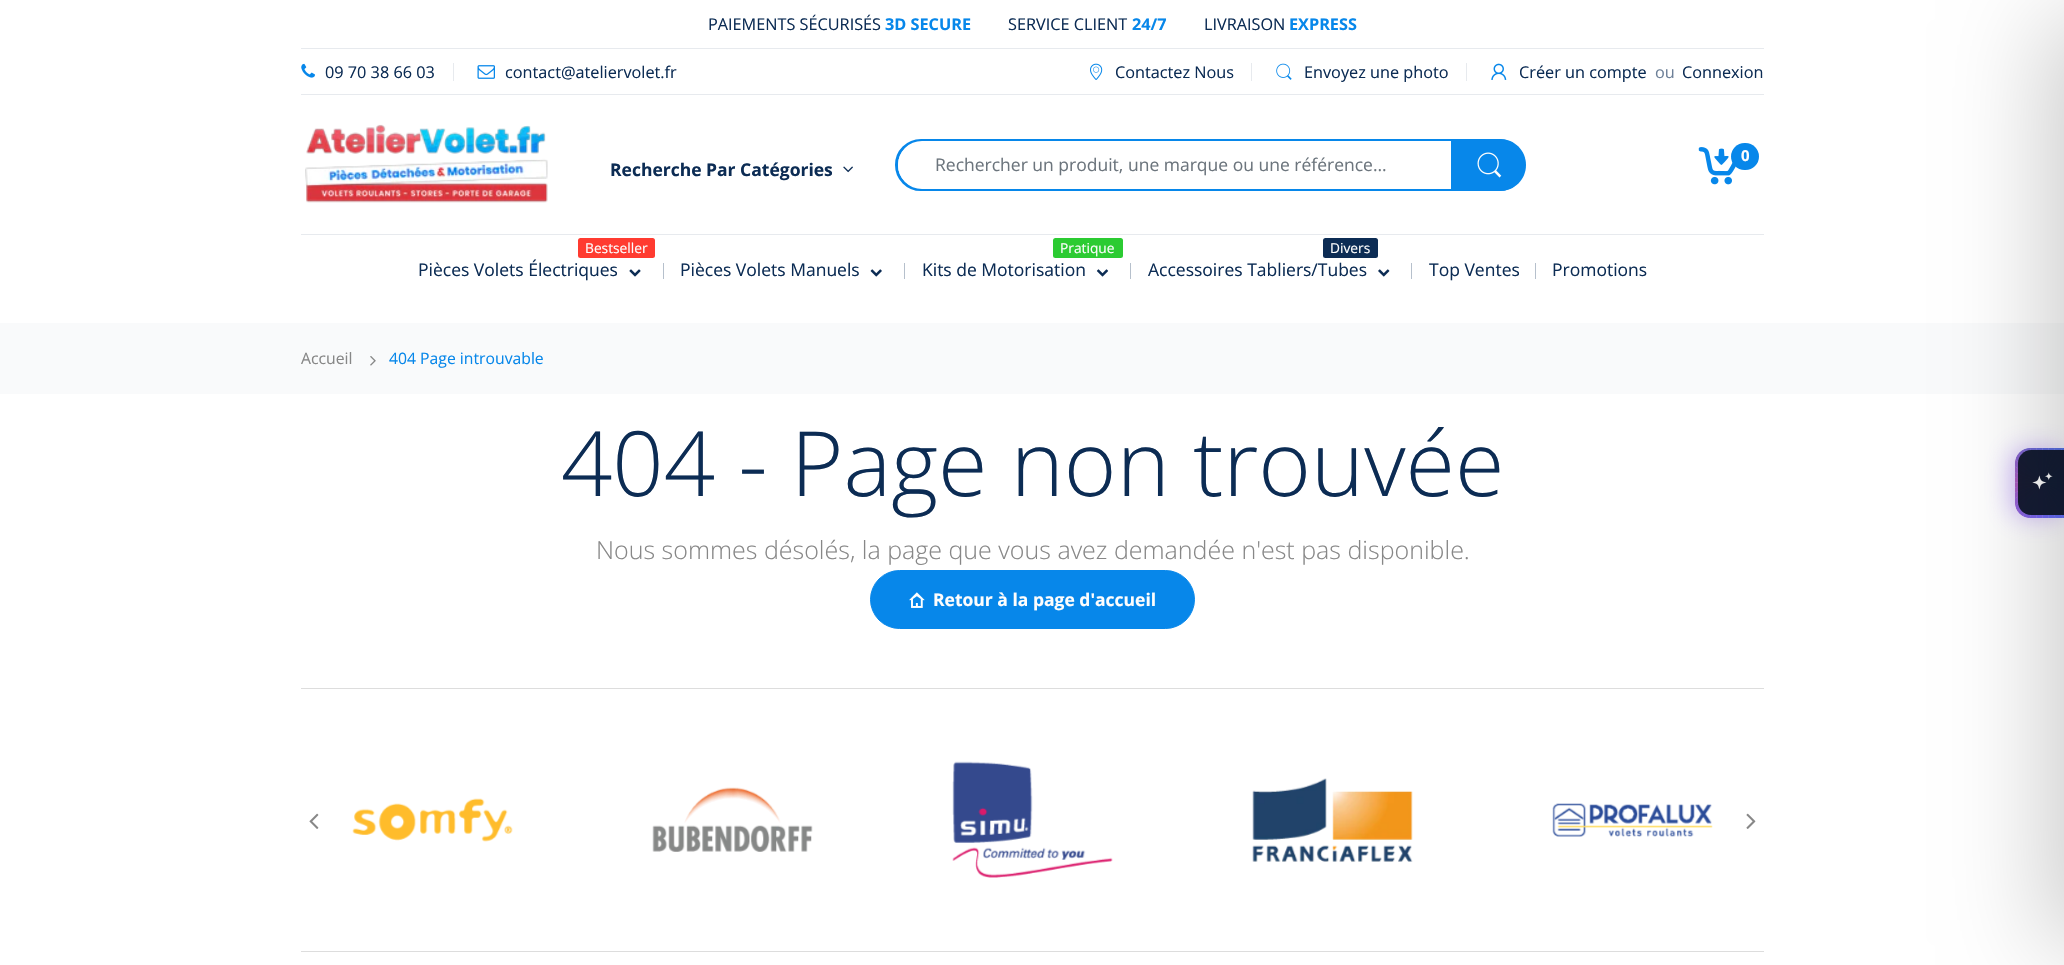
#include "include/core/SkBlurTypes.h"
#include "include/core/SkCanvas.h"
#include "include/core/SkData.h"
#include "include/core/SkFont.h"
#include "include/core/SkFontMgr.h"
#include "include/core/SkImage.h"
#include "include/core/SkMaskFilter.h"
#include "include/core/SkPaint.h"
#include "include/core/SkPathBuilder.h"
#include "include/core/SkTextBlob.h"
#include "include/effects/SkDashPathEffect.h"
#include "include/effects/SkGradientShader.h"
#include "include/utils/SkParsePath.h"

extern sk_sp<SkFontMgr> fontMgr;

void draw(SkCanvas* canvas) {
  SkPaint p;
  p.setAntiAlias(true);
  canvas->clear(SK_ColorWHITE);
  p.setColor(SkColorSetRGB(231, 234, 238));
  canvas->drawRect(SkRect::MakeLTRB(301, 48, 1764, 49), p);
  canvas->drawRect(SkRect::MakeLTRB(301, 94, 1764, 95), p);
  canvas->drawImageRect(SkImages::DeferredFromEncodedData(SkData::MakeFromFileName("images/1.png")), SkRect::MakeLTRB(301, 63, 315, 78), SkSamplingOptions());
  canvas->drawRect(SkRect::MakeLTRB(453, 63, 454, 81), p);
  canvas->drawImageRect(SkImages::DeferredFromEncodedData(SkData::MakeFromFileName("images/2.png")), SkRect::MakeLTRB(477, 65, 495, 79), SkSamplingOptions());
  canvas->drawImageRect(SkImages::DeferredFromEncodedData(SkData::MakeFromFileName("images/3.png")), SkRect::MakeLTRB(1090, 63, 1103, 80), SkSamplingOptions());
  canvas->drawRect(SkRect::MakeLTRB(1251, 63, 1252, 81), p);
  canvas->drawImageRect(SkImages::DeferredFromEncodedData(SkData::MakeFromFileName("images/4.png")), SkRect::MakeLTRB(1276, 63, 1292, 80), SkSamplingOptions());
  canvas->drawRect(SkRect::MakeLTRB(1466, 63, 1467, 81), p);
  canvas->drawImageRect(SkImages::DeferredFromEncodedData(SkData::MakeFromFileName("images/5.png")), SkRect::MakeLTRB(1491, 63, 1507, 80), SkSamplingOptions());
  canvas->drawRect(SkRect::MakeLTRB(301, 234, 1764, 235), p);
  canvas->drawImageRect(SkImages::DeferredFromEncodedData(SkData::MakeFromFileName("images/6.png")), SkRect::MakeLTRB(305, 124, 548, 203), SkSamplingOptions());
  canvas->drawImageRect(SkImages::DeferredFromEncodedData(SkData::MakeFromFileName("images/7.png")), SkRect::MakeLTRB(843, 166, 853, 173), SkSamplingOptions());
  p.setStyle(SkPaint::kStroke_Style);
  p.setStrokeWidth(3);
  p.setColor(SkColorSetRGB(7, 135, 234));
  canvas->drawRoundRect(SkRect::MakeLTRB(896.5f, 140.5f, 1523.5f, 189.5f), 24.5f, 24.5f, p);
  p.setStyle(SkPaint::kFill_Style);
  p.setColor(SK_ColorWHITE);
  canvas->drawRoundRect(SkRect::MakeLTRB(898, 141, 1523, 189), 24, 24, p);
  p.setColor(SkColorSetRGB(7, 135, 234));
  canvas->drawPath(SkPathBuilder().moveTo(1451, 139).lineTo(1500, 139).cubicTo(1514.5f, 139, 1526, 150.5f, 1526, 165).cubicTo(1526, 179.5f, 1514.5f, 191, 1500, 191).lineTo(1451, 191).close().detach(), p);
  canvas->drawImageRect(SkImages::DeferredFromEncodedData(SkData::MakeFromFileName("images/8.png")), SkRect::MakeLTRB(1477, 152, 1502, 178), SkSamplingOptions());
  canvas->drawImageRect(SkImages::DeferredFromEncodedData(SkData::MakeFromFileName("images/9.png")), SkRect::MakeLTRB(1698, 147, 1736, 185), SkSamplingOptions());
  canvas->drawRoundRect(SkRect::MakeLTRB(1731, 143, 1759, 170), 13.5f, 13.5f, p);
  p.setColor(SkColorSetRGB(255, 59, 48));
  canvas->drawRoundRect(SkRect::MakeLTRB(578, 238, 655, 258), 2.5f, 2.5f, p);
  canvas->drawImageRect(SkImages::DeferredFromEncodedData(SkData::MakeFromFileName("images/10.png")), SkRect::MakeLTRB(629, 269, 641, 277), SkSamplingOptions());
  p.setColor(SkColorSetRGB(182, 192, 204));
  canvas->drawRect(SkRect::MakeLTRB(663, 263, 664, 279), p);
  canvas->drawImageRect(SkImages::DeferredFromEncodedData(SkData::MakeFromFileName("images/11.png")), SkRect::MakeLTRB(870, 269, 882, 277), SkSamplingOptions());
  p.setColor(SkColorSetRGB(43, 203, 50));
  canvas->drawRoundRect(SkRect::MakeLTRB(1053, 238, 1123, 258), 2.5f, 2.5f, p);
  p.setColor(SkColorSetRGB(182, 192, 204));
  canvas->drawRect(SkRect::MakeLTRB(904, 263, 905, 279), p);
  canvas->drawImageRect(SkImages::DeferredFromEncodedData(SkData::MakeFromFileName("images/12.png")), SkRect::MakeLTRB(1096, 269, 1109, 277), SkSamplingOptions());
  p.setColor(SkColorSetRGB(12, 44, 84));
  canvas->drawRoundRect(SkRect::MakeLTRB(1323, 238, 1378, 258), 2.5f, 2.5f, p);
  p.setColor(SkColorSetRGB(182, 192, 204));
  canvas->drawRect(SkRect::MakeLTRB(1130, 263, 1131, 279), p);
  canvas->drawImageRect(SkImages::DeferredFromEncodedData(SkData::MakeFromFileName("images/13.png")), SkRect::MakeLTRB(1378, 269, 1390, 277), SkSamplingOptions());
  canvas->drawRect(SkRect::MakeLTRB(1411, 263, 1412, 279), p);
  canvas->drawRect(SkRect::MakeLTRB(1535, 263, 1536, 279), p);
  p.setColor(SkColorSetRGB(249, 250, 251));
  canvas->drawRect(SkRect::MakeLTRB(0, 323, 2064, 394), p);
  canvas->drawImageRect(SkImages::DeferredFromEncodedData(SkData::MakeFromFileName("images/14.png")), SkRect::MakeLTRB(370, 356, 376, 366), SkSamplingOptions());
  p.setColor(SkColorSetRGB(7, 135, 234));
  canvas->drawRoundRect(SkRect::MakeLTRB(870.5f, 570.5f, 1194.5f, 628.5f), 29, 29, p);
  p.setStyle(SkPaint::kStroke_Style);
  p.setStrokeWidth(1);
  canvas->drawRoundRect(SkRect::MakeLTRB(870.5f, 570.5f, 1194.5f, 628.5f), 29, 29, p);
  canvas->drawImageRect(SkImages::DeferredFromEncodedData(SkData::MakeFromFileName("images/15.png")), SkRect::MakeLTRB(909, 592, 925, 608), SkSamplingOptions());
  p.setStyle(SkPaint::kFill_Style);
  p.setColor(SkColorSetRGB(221, 221, 221));
  canvas->drawRect(SkRect::MakeLTRB(301, 688, 1764, 689), p);
  canvas->drawRect(SkRect::MakeLTRB(301, 951, 1764, 952), p);
  canvas->drawImageRect(SkImages::DeferredFromEncodedData(SkData::MakeFromFileName("images/16.png")), SkRect::MakeLTRB(352, 798, 513, 842), SkSamplingOptions());
  canvas->drawImageRect(SkImages::DeferredFromEncodedData(SkData::MakeFromFileName("images/17.png")), SkRect::MakeLTRB(652, 787, 813, 852), SkSamplingOptions());
  canvas->drawImageRect(SkImages::DeferredFromEncodedData(SkData::MakeFromFileName("images/18.png")), SkRect::MakeLTRB(952, 761, 1113, 878), SkSamplingOptions());
  canvas->drawImageRect(SkImages::DeferredFromEncodedData(SkData::MakeFromFileName("images/19.png")), SkRect::MakeLTRB(1252, 778, 1413, 862), SkSamplingOptions());
  canvas->drawImageRect(SkImages::DeferredFromEncodedData(SkData::MakeFromFileName("images/20.png")), SkRect::MakeLTRB(1552, 803, 1713, 837), SkSamplingOptions());
  canvas->drawImageRect(SkImages::DeferredFromEncodedData(SkData::MakeFromFileName("images/21.png")), SkRect::MakeLTRB(309, 813, 319, 829), SkSamplingOptions());
  canvas->drawImageRect(SkImages::DeferredFromEncodedData(SkData::MakeFromFileName("images/22.png")), SkRect::MakeLTRB(1746, 813, 1756, 829), SkSamplingOptions());
  canvas->save();
  canvas->clipPath(SkPathBuilder(SkPathFillType::kEvenOdd).moveTo(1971, 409).lineTo(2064, 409).lineTo(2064, 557).lineTo(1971, 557).close().moveTo(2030, 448).lineTo(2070, 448).lineTo(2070, 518).lineTo(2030, 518).cubicTo(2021.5f, 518, 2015, 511.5f, 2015, 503).lineTo(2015, 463).cubicTo(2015, 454.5f, 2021.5f, 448, 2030, 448).close().detach(), true);
  p.setColor(SkColorSetARGB(102, 139, 92, 246));
  p.setMaskFilter(SkMaskFilter::MakeBlur(kNormal_SkBlurStyle, 12.5f));
  canvas->drawRoundRect(SkRect::MakeLTRB(2010, 448, 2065, 518), 15, 15, p);
  p.setMaskFilter(nullptr);
  canvas->restore();
  canvas->drawImageRect(SkImages::DeferredFromEncodedData(SkData::MakeFromFileName("images/23.png")), SkRect::MakeLTRB(2015, 448, 2064, 518), SkSamplingOptions());
  canvas->drawImageRect(SkImages::DeferredFromEncodedData(SkData::MakeFromFileName("images/24.png")), SkRect::MakeLTRB(2015, 448, 2064, 518), SkSamplingOptions());
  canvas->drawImageRect(SkImages::DeferredFromEncodedData(SkData::MakeFromFileName("images/25.png")), SkRect::MakeLTRB(2015, 448, 2064, 518), SkSamplingOptions());
  p.setColor(SkColorSetARGB(242, 15, 23, 42));
  canvas->drawPath(SkPathBuilder().moveTo(2031, 450).lineTo(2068, 450).lineTo(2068, 515).lineTo(2031, 515).cubicTo(2024, 515, 2018, 509, 2018, 502).lineTo(2018, 463).cubicTo(2018, 456, 2024, 450, 2031, 450).close().detach(), p);
  canvas->drawImageRect(SkImages::DeferredFromEncodedData(SkData::MakeFromFileName("images/26.png")), SkRect::MakeLTRB(2032, 472, 2053, 490), SkSamplingOptions());
  p.setColor(SkColorSetARGB(51, 0, 0, 0));
  p.setMaskFilter(SkMaskFilter::MakeBlur(kNormal_SkBlurStyle, 50));
  canvas->drawRoundRect(SkRect::MakeLTRB(2046, 19, 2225, 946), 11, 11, p);
  p.setMaskFilter(nullptr);
  SkFont font1(fontMgr->matchFamilyStyle("Open Sans", SkFontStyle::Normal()), 16.25f);
  font1.setSubpixel(true);
  p.setColor(SkColorSetRGB(12, 44, 84));
  canvas->drawString("PAIEMENTS SÉCURISÉS", 708, 30, font1, p);
  SkFont font2(fontMgr->matchFamilyStyle("Open Sans", SkFontStyle::Bold()), 16.25f);
  font2.setSubpixel(true);
  p.setColor(SkColorSetRGB(7, 135, 234));
  canvas->drawString("3D SECURE", 885, 30, font2, p);
  p.setColor(SkColorSetRGB(12, 44, 84));
  canvas->drawString("SERVICE CLIENT", 1008, 30, font1, p);
  p.setColor(SkColorSetRGB(7, 135, 234));
  canvas->drawString("24/7", 1132, 30, font2, p);
  p.setColor(SkColorSetRGB(12, 44, 84));
  canvas->drawString("LIVRAISON", 1204, 30, font1, p);
  p.setColor(SkColorSetRGB(7, 135, 234));
  canvas->drawString("EXPRESS", 1289, 30, font2, p);
  p.setColor(SkColorSetRGB(12, 44, 84));
  canvas->drawString("09 70 38 66 03", 325, 78, font1, p);
  canvas->drawString("contact@ateliervolet.fr", 505, 78, font1, p);
  canvas->drawString("Contactez Nous", 1115, 78, font1, p);
  canvas->drawString("Envoyez une photo", 1304, 78, font1, p);
  canvas->drawString("Créer un compte", 1519, 78, font1, p);
  p.setColor(SkColorSetRGB(109, 128, 152));
  canvas->drawString("ou", 1655, 78, font1, p);
  p.setColor(SkColorSetRGB(12, 44, 84));
  canvas->drawString("Connexion", 1682, 78, font1, p);
  SkFont font3(fontMgr->matchFamilyStyle("Open Sans", SkFontStyle::Bold()), 17.5f);
  font3.setSubpixel(true);
  canvas->drawString("Recherche Par Catégories", 610, 176, font3, p);
  SkFont font4(fontMgr->matchFamilyStyle("Open Sans", SkFontStyle::Normal()), 17.5f);
  font4.setSubpixel(true);
  p.setColor(SkColorSetRGB(108, 117, 125));
  canvas->drawString("Rechercher un produit, une marque ou une référence...", 935, 171, font4, p);
  SkFont font5(fontMgr->matchFamilyStyle("Open Sans", SkFontStyle::Bold()), 15);
  font5.setSubpixel(true);
  p.setColor(SkColorSetRGB(253, 253, 253));
  canvas->drawString("0", 1741, 161, font5, p);
  SkFont font6(fontMgr->matchFamilyStyle("Open Sans", SkFontStyle::Normal()), 13.75f);
  font6.setSubpixel(true);
  canvas->drawString("Bestseller", 585, 253, font6, p);
  p.setColor(SkColorSetRGB(12, 44, 84));
  canvas->drawString("Pièces Volets Électriques", 418, 276, font4, p);
  canvas->drawString("Pièces Volets Manuels", 680, 276, font4, p);
  p.setColor(SkColorSetRGB(253, 253, 253));
  canvas->drawString("Pratique", 1060, 253, font6, p);
  p.setColor(SkColorSetRGB(12, 44, 84));
  canvas->drawString("Kits de Motorisation", 922, 276, font4, p);
  p.setColor(SkColorSetRGB(253, 253, 253));
  canvas->drawString("Divers", 1330, 253, font6, p);
  p.setColor(SkColorSetRGB(12, 44, 84));
  canvas->drawString("Accessoires Tabliers/Tubes", 1148, 276, font4, p);
  canvas->drawString("Top Ventes", 1429, 276, font4, p);
  canvas->drawString("Promotions", 1552, 276, font4, p);
  SkFont font7(fontMgr->matchFamilyStyle("Open Sans", SkFontStyle::Normal()), 15.75f);
  font7.setSubpixel(true);
  p.setColor(SkColorSetRGB(135, 135, 135));
  canvas->drawString("Accueil", 301, 364, font7, p);
  p.setColor(SkColorSetRGB(7, 135, 234));
  canvas->drawString("404 Page introuvable", 389, 364, font7, p);
  SkFont font8(fontMgr->matchFamilyStyle("Open Sans", SkFontStyle(300, SkFontStyle::kNormal_Width, SkFontStyle::kUpright_Slant)), 90);
  font8.setSubpixel(true);
  p.setColor(SkColorSetRGB(12, 44, 84));
  canvas->drawString("404 - Page non trouvée", 561, 496, font8, p);
  SkFont font9(fontMgr->matchFamilyStyle("Open Sans", SkFontStyle(300, SkFontStyle::kNormal_Width, SkFontStyle::kUpright_Slant)), 25);
  font9.setSubpixel(true);
  p.setColor(SkColorSetRGB(135, 135, 135));
  canvas->drawString("Nous sommes désolés, la page que vous avez demandée n'est pas disponible.", 596, 559, font9, p);
  p.setColor(SkColorSetRGB(253, 253, 253));
  canvas->drawString("Retour à la page d'accueil", 933, 606, font3, p);
}
